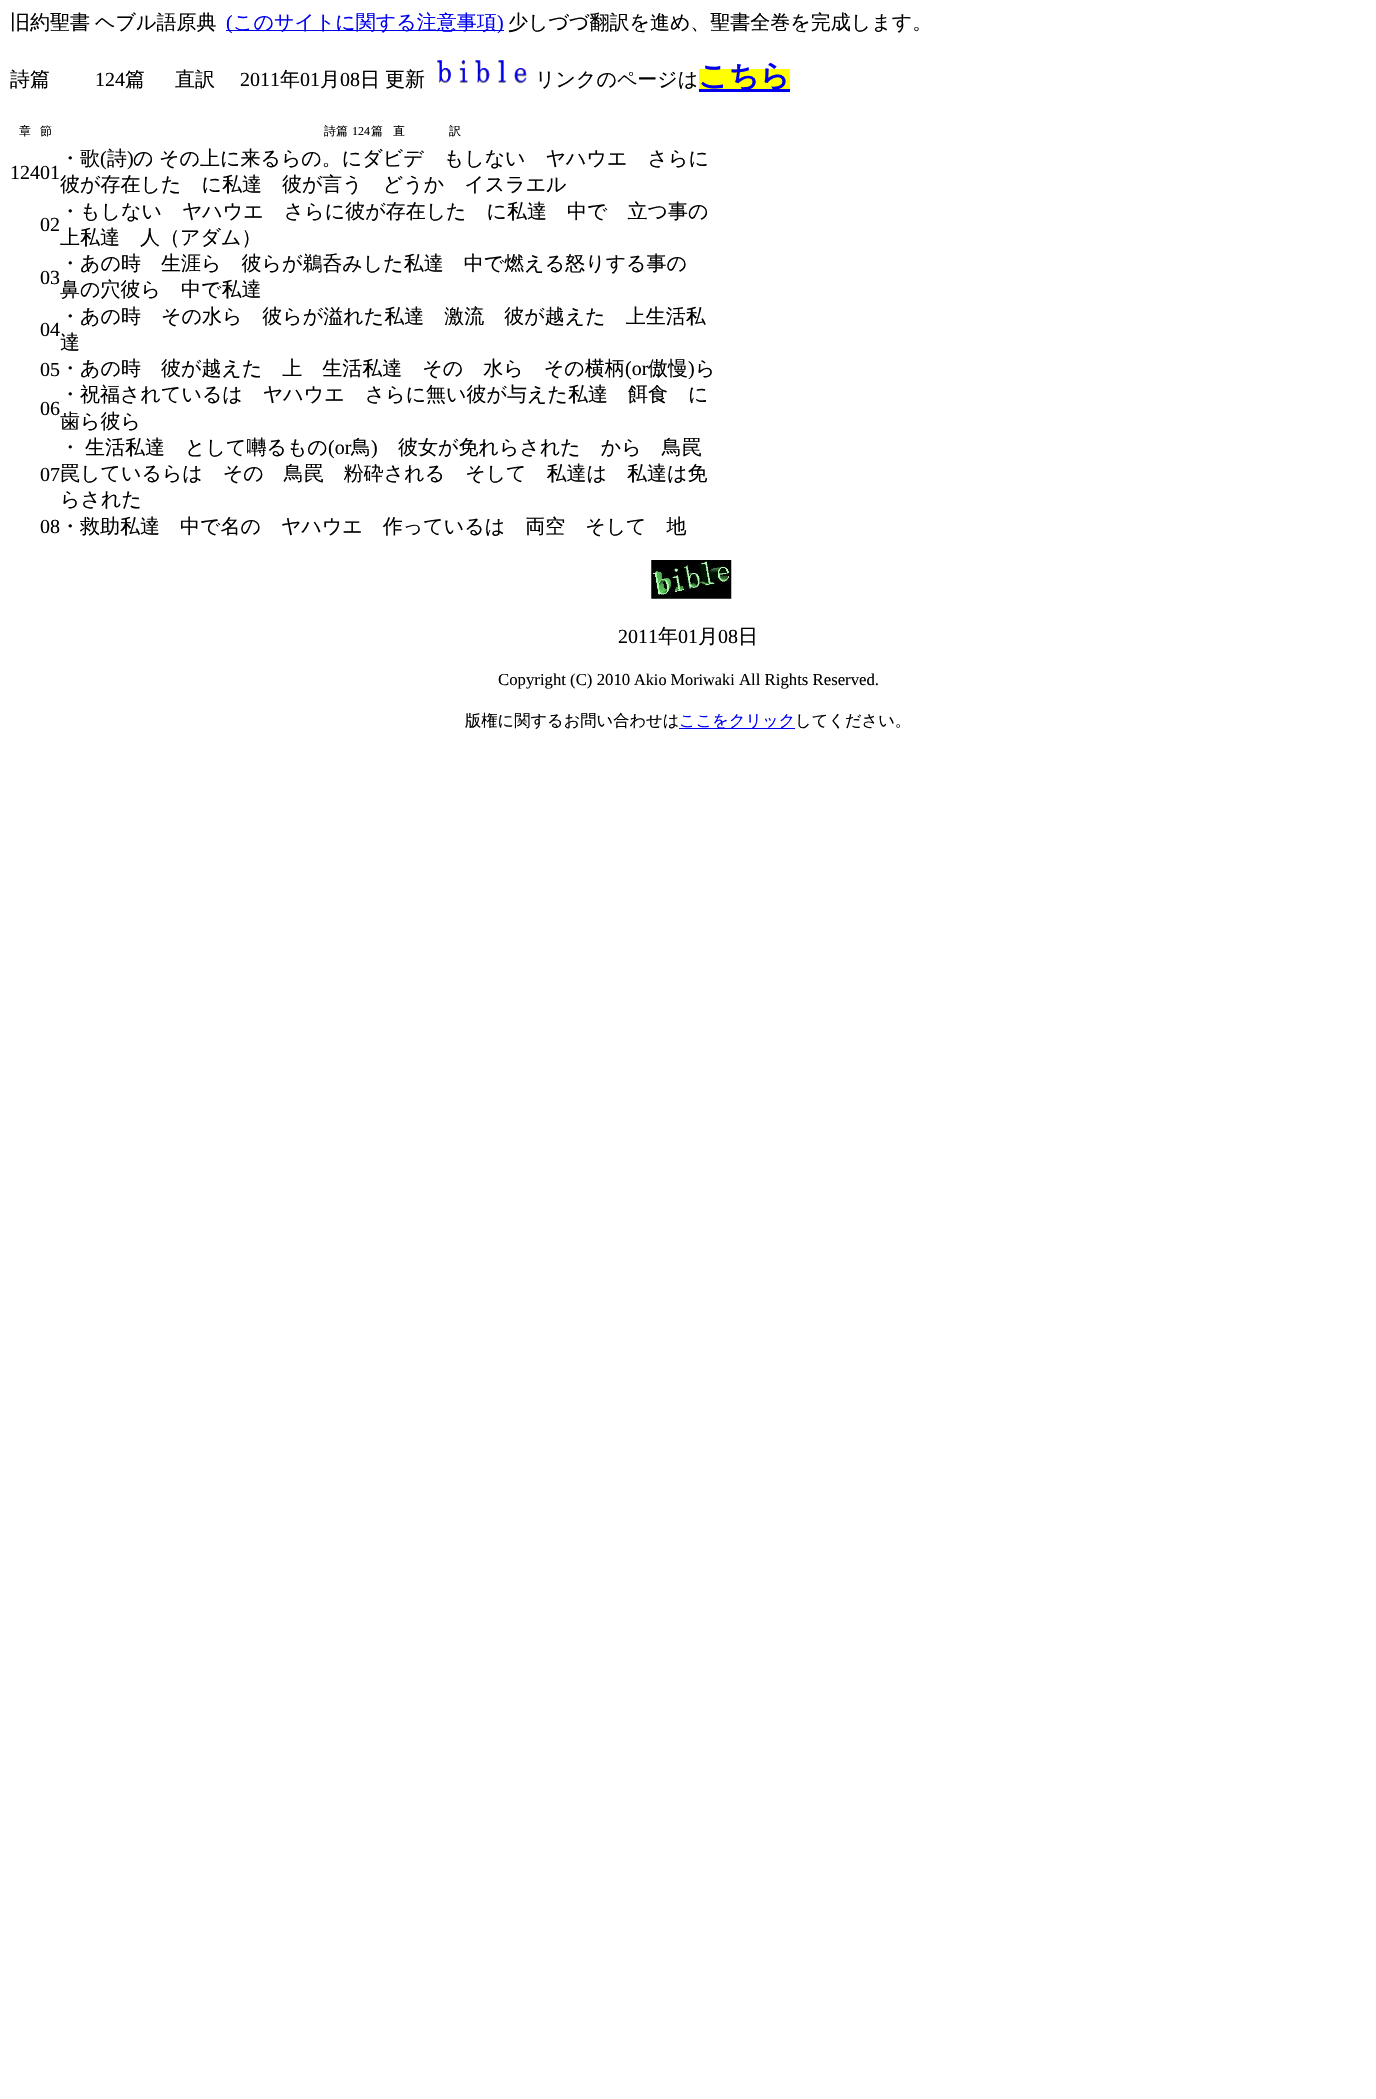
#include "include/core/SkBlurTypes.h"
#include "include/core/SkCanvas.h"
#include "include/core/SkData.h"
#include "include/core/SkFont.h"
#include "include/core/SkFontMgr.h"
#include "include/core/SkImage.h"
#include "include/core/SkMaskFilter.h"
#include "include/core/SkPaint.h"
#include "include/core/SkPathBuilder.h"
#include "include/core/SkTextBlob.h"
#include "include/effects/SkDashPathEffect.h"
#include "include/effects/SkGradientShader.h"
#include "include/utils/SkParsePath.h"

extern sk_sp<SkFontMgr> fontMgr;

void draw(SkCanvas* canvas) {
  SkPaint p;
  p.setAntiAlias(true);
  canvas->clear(SK_ColorWHITE);
  p.setColor(SkColorSetRGB(0, 0, 238));
  canvas->drawRect(SkRect::MakeLTRB(226, 30, 504, 31), p);
  canvas->drawImageRect(SkImages::DeferredFromEncodedData(SkData::MakeFromFileName("images/1.png")), SkRect::MakeLTRB(437, 60, 527, 84), SkSamplingOptions());
  p.setColor(SkColorSetRGB(255, 255, 0));
  canvas->drawRect(SkRect::MakeLTRB(699, 69, 790, 89), p);
  p.setColor(SkColorSetRGB(0, 0, 238));
  canvas->drawRect(SkRect::MakeLTRB(699, 89, 790, 92), p);
  canvas->drawImageRect(SkImages::DeferredFromEncodedData(SkData::MakeFromFileName("images/2.png")), SkRect::MakeLTRB(651, 560, 732, 599), SkSamplingOptions());
  canvas->drawRect(SkRect::MakeLTRB(679, 728, 795, 729), p);
  SkFont font1(fontMgr->matchFamilyStyle("WenQuanYi Zen Hei", SkFontStyle(500, SkFontStyle::kNormal_Width, SkFontStyle::kUpright_Slant)), 20);
  font1.setSubpixel(true);
  p.setColor(SK_ColorBLACK);
  canvas->drawString("旧約聖書", 10, 29, font1, p);
  canvas->drawString("ヘブル語原典", 95, 29, font1, p);
  SkFont font2(fontMgr->matchFamilyStyle("Liberation Serif", SkFontStyle::Normal()), 20);
  font2.setSubpixel(true);
  p.setColor(SkColorSetRGB(0, 0, 238));
  canvas->drawString("(", 226, 29, font2, p);
  canvas->drawString("このサイトに関する注意事項", 233, 29, font1, p);
  canvas->drawString(")", 497, 29, font2, p);
  p.setColor(SK_ColorBLACK);
  canvas->drawString("少しづづ翻訳を進め、聖書全巻を完成します。", 508, 29, font1, p);
  canvas->drawString("詩篇", 10, 86, font1, p);
  canvas->drawString("124", 95, 86, font2, p);
  canvas->drawString("篇", 125, 86, font1, p);
  canvas->drawString("直訳", 175, 86, font1, p);
  canvas->drawString("2011", 240, 86, font2, p);
  canvas->drawString("年", 280, 86, font1, p);
  canvas->drawString("01", 300, 86, font2, p);
  canvas->drawString("月", 320, 86, font1, p);
  canvas->drawString("08", 340, 86, font2, p);
  canvas->drawString("日", 360, 86, font1, p);
  canvas->drawString("更新", 385, 86, font1, p);
  canvas->drawString("リンクのページは", 535, 86, font1, p);
  SkFont font3(fontMgr->matchFamilyStyle("WenQuanYi Zen Hei", SkFontStyle::Bold()), 30);
  font3.setSubpixel(true);
  p.setColor(SkColorSetRGB(0, 0, 238));
  canvas->drawString("こちら", 698, 86, font3, p);
  SkFont font4(fontMgr->matchFamilyStyle("WenQuanYi Zen Hei", SkFontStyle(500, SkFontStyle::kNormal_Width, SkFontStyle::kUpright_Slant)), 12);
  font4.setSubpixel(true);
  p.setColor(SK_ColorBLACK);
  canvas->drawString("章", 19, 135, font4, p);
  canvas->drawString("節", 40, 135, font4, p);
  canvas->drawString("詩篇", 324, 135, font4, p);
  SkFont font5(fontMgr->matchFamilyStyle("Liberation Serif", SkFontStyle::Normal()), 12);
  font5.setSubpixel(true);
  canvas->drawString("124", 352, 135, font5, p);
  canvas->drawString("篇", 371, 135, font4, p);
  canvas->drawString("直", 393, 135, font4, p);
  canvas->drawString("訳", 449, 135, font4, p);
  canvas->drawString("12401", 10, 179, font2, p);
  canvas->drawString("・歌", 60, 165, font1, p);
  canvas->drawString("(", 100, 165, font2, p);
  canvas->drawString("詩", 107, 165, font1, p);
  canvas->drawString(")", 127, 165, font2, p);
  canvas->drawString("の", 133, 165, font1, p);
  canvas->drawString("その上に来るらの。にダビデ　もしない　ヤハウエ　さらに", 159, 165, font1, p);
  canvas->drawString("彼が存在した　に私達　彼が言う　どうか　イスラエル", 60, 191, font1, p);
  canvas->drawString("02", 40, 231, font2, p);
  canvas->drawString("・もしない　ヤハウエ　さらに彼が存在した　に私達　中で　立つ事の", 60, 218, font1, p);
  canvas->drawString("上私達　人（アダム）", 60, 244, font1, p);
  canvas->drawString("03", 40, 284, font2, p);
  canvas->drawString("・あの時　生涯ら　彼らが鵜呑みした私達　中で燃える怒りする事の", 60, 270, font1, p);
  canvas->drawString("鼻の穴彼ら　中で私達", 60, 296, font1, p);
  canvas->drawString("04", 40, 336, font2, p);
  canvas->drawString("・あの時　その水ら　彼らが溢れた私達　激流　彼が越えた　上生活私", 60, 323, font1, p);
  canvas->drawString("達", 60, 349, font1, p);
  canvas->drawString("05", 40, 376, font2, p);
  canvas->drawString("・あの時　彼が越えた　上　生活私達　その　水ら　その横柄", 60, 375, font1, p);
  canvas->drawString("(or", 625, 375, font2, p);
  canvas->drawString("傲慢", 648, 375, font1, p);
  canvas->drawString(")", 688, 375, font2, p);
  canvas->drawString("ら", 695, 375, font1, p);
  canvas->drawString("06", 40, 415, font2, p);
  canvas->drawString("・祝福されているは　ヤハウエ　さらに無い彼が与えた私達　餌食　に", 60, 401, font1, p);
  canvas->drawString("歯ら彼ら", 60, 428, font1, p);
  canvas->drawString("07", 40, 481, font2, p);
  canvas->drawString("・", 60, 454, font1, p);
  canvas->drawString("生活私達　として囀るもの", 85, 454, font1, p);
  canvas->drawString("(or", 328, 454, font2, p);
  canvas->drawString("鳥", 351, 454, font1, p);
  canvas->drawString(")", 371, 454, font2, p);
  canvas->drawString("彼女が免れらされた　から　鳥罠", 398, 454, font1, p);
  canvas->drawString("罠しているらは　その　鳥罠　粉砕される　そして　私達は　私達は免", 60, 480, font1, p);
  canvas->drawString("らされた", 60, 506, font1, p);
  canvas->drawString("08", 40, 533, font2, p);
  canvas->drawString("・救助私達　中で名の　ヤハウエ　作っているは　両空　そして　地", 60, 533, font1, p);
  canvas->drawString("2011", 618, 643, font2, p);
  canvas->drawString("年", 658, 643, font1, p);
  canvas->drawString("01", 678, 643, font2, p);
  canvas->drawString("月", 698, 643, font1, p);
  canvas->drawString("08", 718, 643, font2, p);
  canvas->drawString("日", 738, 643, font1, p);
  SkFont font6(fontMgr->matchFamilyStyle("Liberation Serif", SkFontStyle::Normal()), 16.75f);
  font6.setSubpixel(true);
  canvas->drawString("Copyright (C) 2010", 498, 685, font6, p);
  SkFont font7(fontMgr->matchFamilyStyle("Liberation Serif", SkFontStyle::Normal()), 16.25f);
  font7.setSubpixel(true);
  canvas->drawString("Akio Moriwaki", 634, 685, font7, p);
  canvas->drawString("All Rights Reserved.", 739, 685, font6, p);
  SkFont font8(fontMgr->matchFamilyStyle("WenQuanYi Zen Hei", SkFontStyle(500, SkFontStyle::kNormal_Width, SkFontStyle::kUpright_Slant)), 16.25f);
  font8.setSubpixel(true);
  canvas->drawString("版権に関するお問い合わせは", 465, 726, font8, p);
  p.setColor(SkColorSetRGB(0, 0, 238));
  canvas->drawString("ここをクリック", 679, 726, font8, p);
  p.setColor(SK_ColorBLACK);
  canvas->drawString("してください。", 795, 726, font8, p);
}
